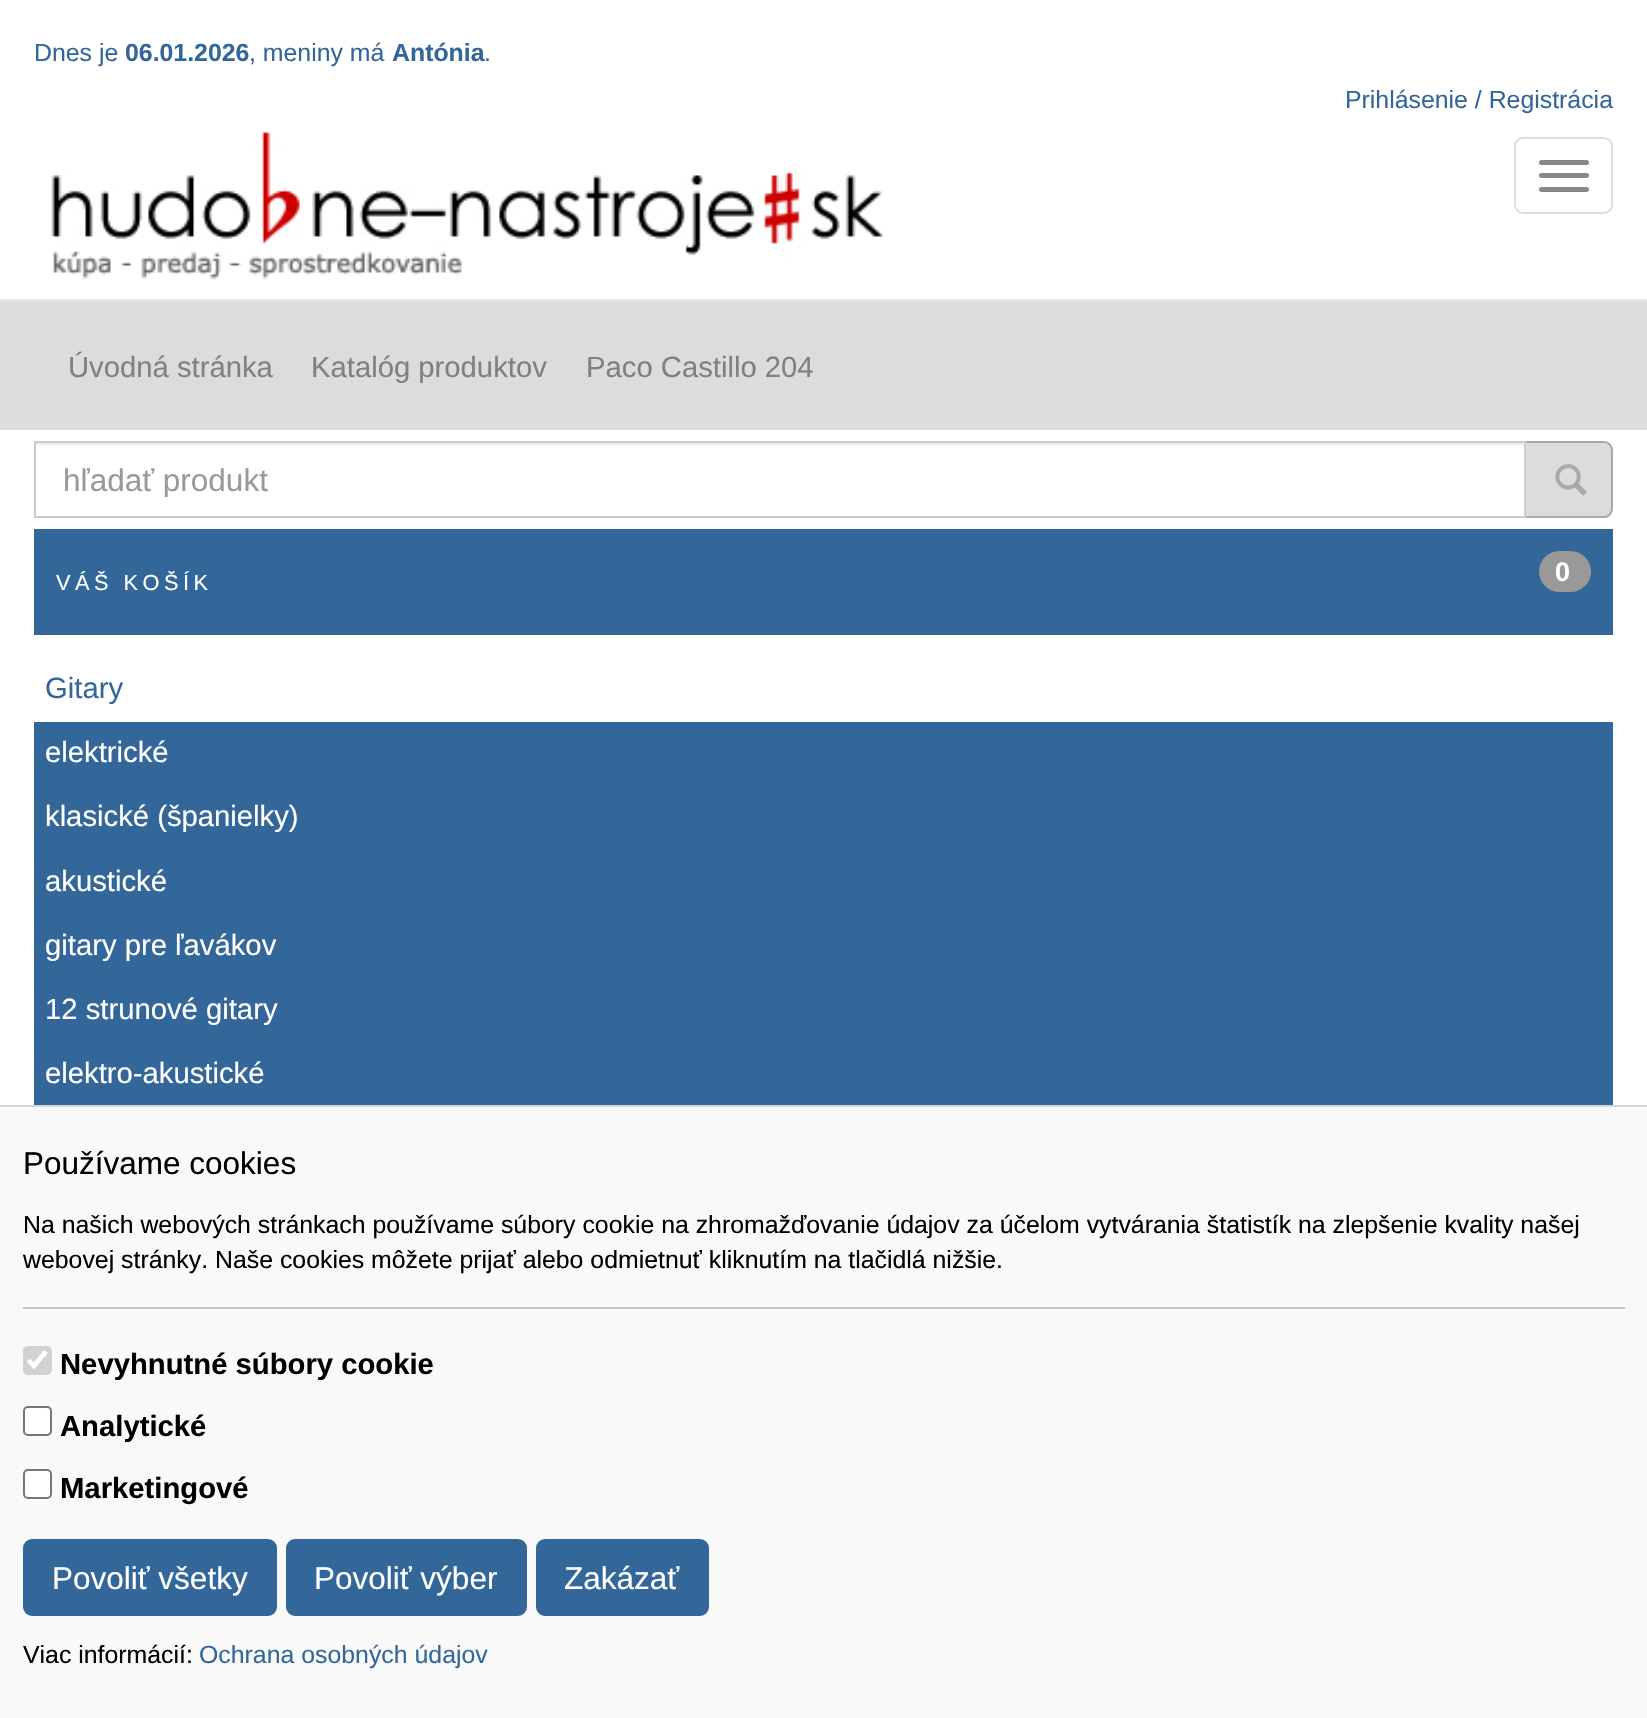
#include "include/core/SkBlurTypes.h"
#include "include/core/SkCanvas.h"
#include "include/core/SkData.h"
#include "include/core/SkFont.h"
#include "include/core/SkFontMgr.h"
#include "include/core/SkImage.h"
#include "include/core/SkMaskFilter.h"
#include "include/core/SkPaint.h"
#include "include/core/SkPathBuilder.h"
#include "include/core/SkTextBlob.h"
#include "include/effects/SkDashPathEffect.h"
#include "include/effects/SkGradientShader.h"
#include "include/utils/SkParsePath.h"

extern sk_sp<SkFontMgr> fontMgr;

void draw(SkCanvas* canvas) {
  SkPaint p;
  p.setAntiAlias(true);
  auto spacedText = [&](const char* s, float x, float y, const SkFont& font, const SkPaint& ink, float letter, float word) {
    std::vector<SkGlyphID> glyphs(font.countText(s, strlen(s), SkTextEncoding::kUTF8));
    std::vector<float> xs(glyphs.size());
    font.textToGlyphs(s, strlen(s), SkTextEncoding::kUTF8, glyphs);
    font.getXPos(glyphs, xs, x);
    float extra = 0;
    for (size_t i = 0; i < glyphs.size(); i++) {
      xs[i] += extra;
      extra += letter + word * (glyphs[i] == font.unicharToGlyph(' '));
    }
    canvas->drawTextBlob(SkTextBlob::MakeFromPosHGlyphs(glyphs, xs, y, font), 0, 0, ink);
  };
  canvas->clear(SkColorSetRGB(220, 220, 220));
  p.setColor(SK_ColorWHITE);
  canvas->drawRect(SkRect::MakeLTRB(0, 0, 1647, 299), p);
  p.setColor(SkColorSetRGB(231, 231, 231));
  canvas->drawRect(SkRect::MakeLTRB(0, 299, 1647, 301), p);
  canvas->drawImageRect(SkImages::DeferredFromEncodedData(SkData::MakeFromFileName("images/1.png")), SkRect::MakeLTRB(51, 132, 883, 280), SkSamplingOptions());
  p.setStyle(SkPaint::kStroke_Style);
  p.setStrokeWidth(2);
  p.setColor(SkColorSetRGB(221, 221, 221));
  canvas->drawRoundRect(SkRect::MakeLTRB(1515, 138, 1612, 213), 8, 8, p);
  p.setStyle(SkPaint::kFill_Style);
  p.setColor(SkColorSetRGB(136, 136, 136));
  canvas->drawRoundRect(SkRect::MakeLTRB(1539, 160, 1589, 165), 2.5f, 2.5f, p);
  canvas->drawRoundRect(SkRect::MakeLTRB(1539, 173, 1589, 178), 2.5f, 2.5f, p);
  canvas->drawRoundRect(SkRect::MakeLTRB(1539, 187, 1589, 192), 2.5f, 2.5f, p);
  p.setColor(SK_ColorWHITE);
  canvas->drawRect(SkRect::MakeLTRB(0, 430, 1647, 1105), p);
  p.setColor(SkColorSetRGB(220, 220, 220));
  canvas->drawPath(SkPathBuilder().moveTo(1524, 442).lineTo(1604, 442).cubicTo(1608.5f, 442, 1612, 445.5f, 1612, 450).lineTo(1612, 509).cubicTo(1612, 513.5f, 1608.5f, 517, 1604, 517).lineTo(1524, 517).close().detach(), p);
  p.setStyle(SkPaint::kStroke_Style);
  p.setColor(SkColorSetRGB(169, 169, 169));
  canvas->drawPath(SkPathBuilder().moveTo(1524, 442).lineTo(1604, 442).cubicTo(1608.5f, 442, 1612, 445.5f, 1612, 450).lineTo(1612, 509).cubicTo(1612, 513.5f, 1608.5f, 517, 1604, 517).lineTo(1524, 517).close().detach(), p);
  p.setStyle(SkPaint::kFill_Style);
  p.setColor(SK_ColorWHITE);
  canvas->drawRect(SkRect::MakeLTRB(1523, 443, 1524, 516), p);
  p.setColor(SkColorSetRGB(236, 236, 236));
  canvas->drawRect(SkRect::MakeLTRB(36, 443, 1523, 445), p);
  p.setStyle(SkPaint::kStroke_Style);
  p.setColor(SkColorSetRGB(204, 204, 204));
  canvas->drawRect(SkRect::MakeLTRB(35, 442, 1525, 517), p);
  canvas->drawImageRect(SkImages::DeferredFromEncodedData(SkData::MakeFromFileName("images/2.png")), SkRect::MakeLTRB(1555, 464, 1587, 496), SkSamplingOptions());
  p.setStyle(SkPaint::kFill_Style);
  p.setColor(SkColorSetRGB(51, 102, 153));
  canvas->drawRect(SkRect::MakeLTRB(34, 529, 1613, 635), p);
  p.setColor(SkColorSetRGB(153, 153, 153));
  canvas->drawRoundRect(SkRect::MakeLTRB(1539, 551, 1591, 592), 20.5f, 20.5f, p);
  p.setColor(SkColorSetRGB(51, 102, 153));
  canvas->drawRect(SkRect::MakeLTRB(34, 722, 1613, 1105), p);
  p.setColor(SkColorSetRGB(249, 249, 249));
  canvas->drawRect(SkRect::MakeLTRB(0, 1107, 1647, 1718), p);
  p.setColor(SkColorSetRGB(215, 213, 213));
  canvas->drawRect(SkRect::MakeLTRB(0, 1105, 1647, 1107), p);
  p.setColor(SkColorSetRGB(198, 198, 198));
  canvas->drawRect(SkRect::MakeLTRB(23, 1307, 1625, 1309), p);
  p.setColor(SkColorSetRGB(210, 210, 210));
  canvas->drawRoundRect(SkRect::MakeLTRB(23, 1346, 52, 1375), 5, 5, p);
  p.setStyle(SkPaint::kStroke_Style);
  p.setStrokeWidth(4.7f);
  p.setColor(SK_ColorWHITE);
  canvas->drawPath(SkPathBuilder().moveTo(28.5f, 1360).lineTo(34, 1366).lineTo(46, 1351.5f).detach(), p);
  p.setStyle(SkPaint::kFill_Style);
  canvas->drawRoundRect(SkRect::MakeLTRB(24, 1407, 51, 1435), 4, 4, p);
  p.setStyle(SkPaint::kStroke_Style);
  p.setStrokeWidth(2);
  p.setColor(SkColorSetRGB(118, 118, 118));
  canvas->drawRoundRect(SkRect::MakeLTRB(24, 1407, 51, 1435), 4, 4, p);
  p.setStyle(SkPaint::kFill_Style);
  p.setColor(SK_ColorWHITE);
  canvas->drawRoundRect(SkRect::MakeLTRB(24, 1470, 51, 1498), 4, 4, p);
  p.setStyle(SkPaint::kStroke_Style);
  p.setColor(SkColorSetRGB(118, 118, 118));
  canvas->drawRoundRect(SkRect::MakeLTRB(24, 1470, 51, 1498), 4, 4, p);
  p.setStyle(SkPaint::kFill_Style);
  p.setColor(SkColorSetRGB(51, 102, 153));
  canvas->drawRoundRect(SkRect::MakeLTRB(24, 1540, 276, 1615), 8, 8, p);
  p.setStyle(SkPaint::kStroke_Style);
  canvas->drawRoundRect(SkRect::MakeLTRB(24, 1540, 276, 1615), 8, 8, p);
  p.setStyle(SkPaint::kFill_Style);
  canvas->drawRoundRect(SkRect::MakeLTRB(287, 1540, 526, 1615), 8, 8, p);
  p.setStyle(SkPaint::kStroke_Style);
  canvas->drawRoundRect(SkRect::MakeLTRB(287, 1540, 526, 1615), 8, 8, p);
  p.setStyle(SkPaint::kFill_Style);
  canvas->drawRoundRect(SkRect::MakeLTRB(537, 1540, 708, 1615), 8, 8, p);
  p.setStyle(SkPaint::kStroke_Style);
  canvas->drawRoundRect(SkRect::MakeLTRB(537, 1540, 708, 1615), 8, 8, p);
  SkFont font1(fontMgr->matchFamilyStyle("Liberation Sans", SkFontStyle::Normal()), 24.85f);
  font1.setSubpixel(true);
  p.setStyle(SkPaint::kFill_Style);
  canvas->drawString("Dnes je", 34, 61, font1, p);
  SkFont font2(fontMgr->matchFamilyStyle("Liberation Sans", SkFontStyle::Bold()), 24.85f);
  font2.setSubpixel(true);
  canvas->drawString("06.01.2026", 125, 61, font2, p);
  canvas->drawString(", meniny má", 249, 61, font1, p);
  canvas->drawString("Antónia", 392, 61, font2, p);
  canvas->drawString(".", 484, 61, font1, p);
  canvas->drawString("Prihlásenie / Registrácia", 1345, 108, font1, p);
  SkFont font3(fontMgr->matchFamilyStyle("Liberation Sans", SkFontStyle::Normal()), 29.25f);
  font3.setSubpixel(true);
  p.setColor(SkColorSetRGB(128, 128, 128));
  canvas->drawString("Úvodná stránka", 68, 377, font3, p);
  canvas->drawString("Katalóg produktov", 311, 377, font3, p);
  canvas->drawString("Paco Castillo 204", 586, 377, font3, p);
  canvas->save();
  canvas->clipRect(SkRect::MakeLTRB(63, 461, 1496, 497));
  SkFont font4(fontMgr->matchFamilyStyle("Liberation Sans", SkFontStyle::Normal()), 31.5f);
  font4.setSubpixel(true);
  p.setColor(SkColorSetRGB(153, 153, 153));
  canvas->drawString("hľadať produkt", 63, 491, font4, p);
  canvas->restore();
  SkFont font5(fontMgr->matchFamilyStyle("Liberation Sans", SkFontStyle::Normal()), 21.75f);
  font5.setSubpixel(true);
  p.setColor(SK_ColorWHITE);
  spacedText("VÁŠ KOŠÍK", 56, 590, font5, p, 4.5f, 0);
  SkFont font6(fontMgr->matchFamilyStyle("Liberation Sans", SkFontStyle::Bold()), 27);
  font6.setSubpixel(true);
  spacedText("0", 1555, 581, font6, p, 4.5f, 0);
  p.setColor(SkColorSetRGB(51, 102, 153));
  canvas->drawString("Gitary", 45, 698, font3, p);
  p.setColor(SK_ColorWHITE);
  canvas->drawString("elektrické", 45, 762, font3, p);
  canvas->drawString("klasické (španielky)", 45, 826, font3, p);
  canvas->drawString("akustické", 45, 891, font3, p);
  canvas->drawString("gitary pre ľavákov", 45, 955, font3, p);
  canvas->drawString("12 strunové gitary", 45, 1019, font3, p);
  canvas->drawString("elektro-akustické", 45, 1083, font3, p);
  p.setColor(SK_ColorBLACK);
  canvas->drawString("Používame cookies", 23, 1174, font4, p);
  canvas->drawString("Na našich webových stránkach používame súbory cookie na zhromažďovanie údajov za účelom vytvárania štatistík na zlepšenie kvality našej", 23, 1233, font1, p);
  canvas->drawString("webovej stránky. Naše cookies môžete prijať alebo odmietnuť kliknutím na tlačidlá nižšie.", 23, 1268, font1, p);
  SkFont font7(fontMgr->matchFamilyStyle("Liberation Sans", SkFontStyle::Bold()), 29.25f);
  font7.setSubpixel(true);
  canvas->drawString("Nevyhnutné súbory cookie", 60, 1374, font7, p);
  canvas->drawString("Analytické", 60, 1436, font7, p);
  canvas->drawString("Marketingové", 60, 1498, font7, p);
  p.setColor(SK_ColorWHITE);
  canvas->drawString("Povoliť všetky", 52, 1589, font4, p);
  canvas->drawString("Povoliť výber", 314, 1589, font4, p);
  canvas->drawString("Zakázať", 564, 1589, font4, p);
  p.setColor(SK_ColorBLACK);
  canvas->drawString("Viac informácií:", 23, 1663, font1, p);
  p.setColor(SkColorSetRGB(51, 102, 153));
  canvas->drawString("Ochrana osobných údajov", 199, 1663, font1, p);
}
